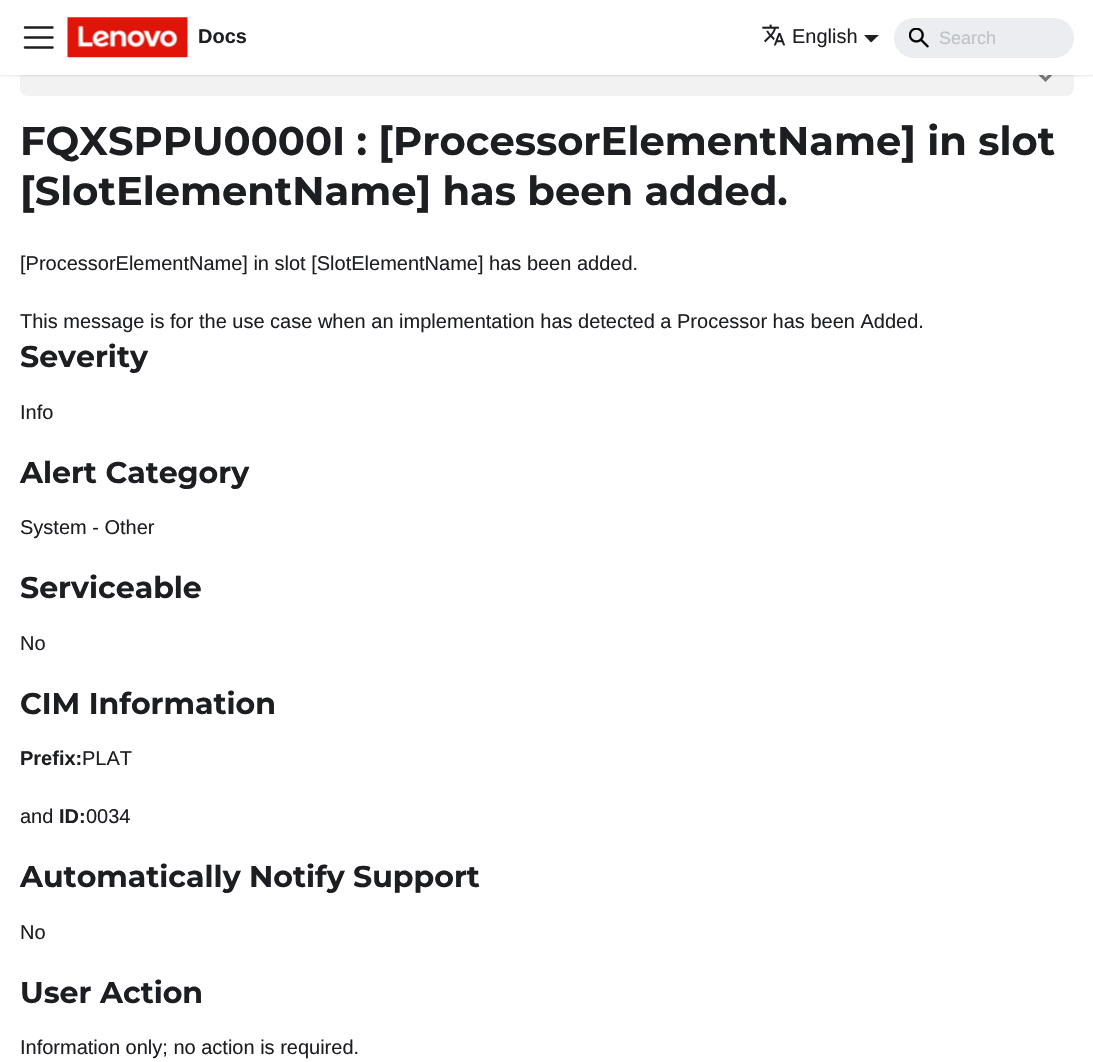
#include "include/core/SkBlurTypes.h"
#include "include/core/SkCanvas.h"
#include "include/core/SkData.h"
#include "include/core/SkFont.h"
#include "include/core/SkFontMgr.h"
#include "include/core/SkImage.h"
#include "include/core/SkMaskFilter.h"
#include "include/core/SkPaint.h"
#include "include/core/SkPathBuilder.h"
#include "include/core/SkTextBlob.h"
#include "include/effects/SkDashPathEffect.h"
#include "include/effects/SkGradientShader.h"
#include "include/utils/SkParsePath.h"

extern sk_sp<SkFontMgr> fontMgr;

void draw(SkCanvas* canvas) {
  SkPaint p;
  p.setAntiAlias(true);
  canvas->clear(SK_ColorWHITE);
  p.setColor(SkColorSetRGB(242, 242, 242));
  canvas->drawRoundRect(SkRect::MakeLTRB(20, 55, 1074, 96), 8, 8, p);
  p.setColor(SkColorSetRGB(121, 121, 121));
  canvas->drawPath(SkPathBuilder().moveTo(1053, 70).lineTo(1045.5f, 77.5f).lineTo(1038, 70).lineTo(1035.5f, 72).lineTo(1045.5f, 82).lineTo(1055.5f, 72).close().detach(), p);
  p.setColor(SkColorSetARGB(26, 0, 0, 0));
  p.setMaskFilter(SkMaskFilter::MakeBlur(kNormal_SkBlurStyle, 1));
  canvas->drawRect(SkRect::MakeLTRB(0, 1, 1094, 76), p);
  p.setMaskFilter(nullptr);
  p.setColor(SK_ColorWHITE);
  canvas->drawRect(SkRect::MakeLTRB(0, 0, 1093, 75), p);
  p.setStyle(SkPaint::kStroke_Style);
  p.setStrokeWidth(2.5f);
  p.setStrokeCap(SkPaint::kRound_Cap);
  p.setColor(SkColorSetRGB(28, 30, 33));
  canvas->drawPath(SkPathBuilder().moveTo(25, 27.5f).lineTo(52.5f, 27.5f).moveTo(25, 37.5f).lineTo(52.5f, 37.5f).moveTo(25, 47.5f).lineTo(52.5f, 47.5f).detach(), p);
  canvas->drawImageRect(SkImages::DeferredFromEncodedData(SkData::MakeFromFileName("images/1.png")), SkRect::MakeLTRB(67, 17, 188, 58), SkSamplingOptions());
  canvas->drawImageRect(SkImages::DeferredFromEncodedData(SkData::MakeFromFileName("images/2.png")), SkRect::MakeLTRB(762, 24, 786, 46), SkSamplingOptions());
  p.setStyle(SkPaint::kFill_Style);
  canvas->drawPath(SkPathBuilder().moveTo(864, 35).lineTo(879, 35).lineTo(871, 42.5f).close().detach(), p);
  p.setColor(SkColorSetRGB(235, 237, 240));
  canvas->drawRoundRect(SkRect::MakeLTRB(894, 18, 1074, 58), 20, 20, p);
  canvas->drawImageRect(SkImages::DeferredFromEncodedData(SkData::MakeFromFileName("images/3.png")), SkRect::MakeLTRB(909, 28, 929, 48), SkSamplingOptions());
  SkFont font1(fontMgr->matchFamilyStyle("Liberation Sans", SkFontStyle::Bold()), 20);
  font1.setSubpixel(true);
  p.setColor(SkColorSetRGB(28, 30, 33));
  canvas->drawString("Docs", 198, 43, font1, p);
  SkFont font2(fontMgr->matchFamilyStyle("Liberation Sans", SkFontStyle::Normal()), 20);
  font2.setSubpixel(true);
  canvas->drawString("English", 792, 43, font2, p);
  SkFont font3(fontMgr->matchFamilyStyle("Liberation Sans", SkFontStyle::Normal()), 18);
  font3.setSubpixel(true);
  p.setColor(SkColorSetRGB(190, 195, 201));
  canvas->drawString("Search", 939, 44, font3, p);
  SkFont font4(fontMgr->matchFamilyStyle("Montserrat", SkFontStyle::Bold()), 40);
  font4.setSubpixel(true);
  p.setColor(SkColorSetRGB(28, 30, 33));
  canvas->drawString("FQXSPPU0000I : [ProcessorElementName] in slot", 20, 155, font4, p);
  canvas->drawString("[SlotElementName] has been added.", 20, 205, font4, p);
  canvas->drawString("[ProcessorElementName] in slot [SlotElementName] has been added.", 20, 270, font2, p);
  canvas->drawString("This message is for the use case when an implementation has detected a Processor has been Added.", 20, 328, font2, p);
  SkFont font5(fontMgr->matchFamilyStyle("Montserrat", SkFontStyle::Bold()), 30);
  font5.setSubpixel(true);
  canvas->drawString("Severity", 20, 367, font5, p);
  canvas->drawString("Info", 20, 419, font2, p);
  canvas->drawString("Alert Category", 20, 483, font5, p);
  canvas->drawString("System - Other", 20, 534, font2, p);
  canvas->drawString("Serviceable", 20, 598, font5, p);
  canvas->drawString("No", 20, 650, font2, p);
  canvas->drawString("CIM Information", 20, 714, font5, p);
  canvas->drawString("Prefix:", 20, 765, font1, p);
  canvas->drawString("PLAT", 82, 765, font2, p);
  canvas->drawString("and", 20, 823, font2, p);
  canvas->drawString("ID:", 59, 823, font1, p);
  canvas->drawString("0034", 86, 823, font2, p);
  canvas->drawString("Automatically Notify Support", 20, 887, font5, p);
  canvas->drawString("No", 20, 939, font2, p);
  canvas->drawString("User Action", 20, 1003, font5, p);
  canvas->drawString("Information only; no action is required.", 20, 1054, font2, p);
}
